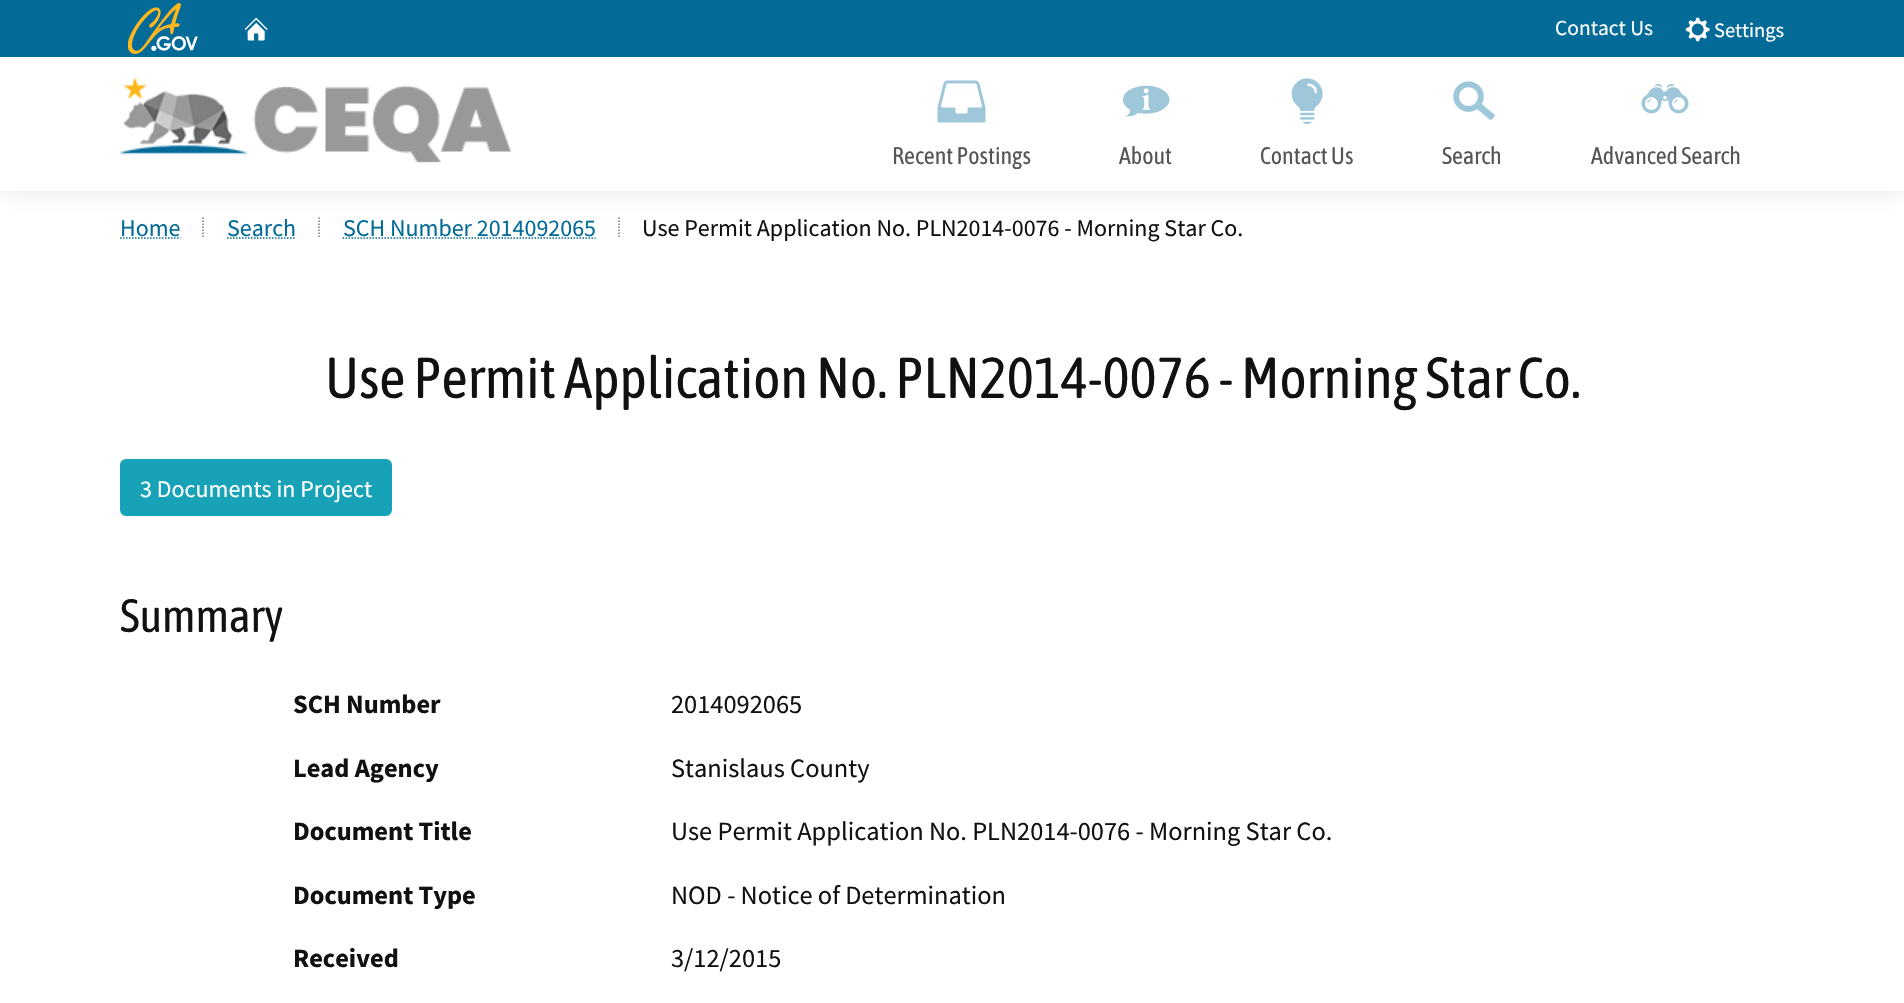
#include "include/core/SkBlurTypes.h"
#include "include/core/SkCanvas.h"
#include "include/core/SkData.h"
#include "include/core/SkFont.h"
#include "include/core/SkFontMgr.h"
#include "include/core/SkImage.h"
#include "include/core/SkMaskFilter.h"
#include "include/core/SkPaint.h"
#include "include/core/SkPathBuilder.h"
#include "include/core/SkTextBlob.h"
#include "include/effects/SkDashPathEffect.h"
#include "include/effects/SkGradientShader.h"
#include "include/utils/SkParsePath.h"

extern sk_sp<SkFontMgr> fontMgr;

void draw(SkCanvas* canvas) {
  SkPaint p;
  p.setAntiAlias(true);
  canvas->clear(SK_ColorWHITE);
  p.setStyle(SkPaint::kStroke_Style);
  p.setStrokeWidth(1.5f);
  p.setColor(SkColorSetRGB(119, 119, 119));
  p.setPathEffect(SkDashPathEffect::Make({{1.5f, 1.5f}}, 0));
  canvas->drawPath(SkPathBuilder().moveTo(203, 217.5f).lineTo(203, 237).detach(), p);
  p.setPathEffect(nullptr);
  p.setPathEffect(SkDashPathEffect::Make({{1.5f, 1.5f}}, 0));
  canvas->drawPath(SkPathBuilder().moveTo(319, 217.5f).lineTo(319, 237).detach(), p);
  p.setPathEffect(nullptr);
  p.setPathEffect(SkDashPathEffect::Make({{1.5f, 1.5f}}, 0));
  canvas->drawPath(SkPathBuilder().moveTo(619, 217.5f).lineTo(619, 237).detach(), p);
  p.setPathEffect(nullptr);
  p.setStyle(SkPaint::kFill_Style);
  p.setColor(SkColorSetARGB(102, 189, 189, 189));
  p.setMaskFilter(SkMaskFilter::MakeBlur(kNormal_SkBlurStyle, 11));
  canvas->drawRect(SkRect::MakeLTRB(0, 0, 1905, 191), p);
  p.setMaskFilter(nullptr);
  p.setColor(SK_ColorWHITE);
  canvas->drawRect(SkRect::MakeLTRB(0, 57, 1904, 191), p);
  p.setColor(SkColorSetRGB(4, 107, 153));
  canvas->drawRect(SkRect::MakeLTRB(0, 0, 1904, 57), p);
  canvas->drawImageRect(SkImages::DeferredFromEncodedData(SkData::MakeFromFileName("images/1.png")), SkRect::MakeLTRB(128, 3, 198, 54), SkSamplingOptions());
  canvas->drawImageRect(SkImages::DeferredFromEncodedData(SkData::MakeFromFileName("images/2.png")), SkRect::MakeLTRB(244, 17, 268, 41), SkSamplingOptions());
  canvas->drawImageRect(SkImages::DeferredFromEncodedData(SkData::MakeFromFileName("images/3.png")), SkRect::MakeLTRB(1685, 17, 1710, 42), SkSamplingOptions());
  canvas->drawImageRect(SkImages::DeferredFromEncodedData(SkData::MakeFromFileName("images/4.png")), SkRect::MakeLTRB(120, 77, 512, 163), SkSamplingOptions());
  canvas->drawImageRect(SkImages::DeferredFromEncodedData(SkData::MakeFromFileName("images/5.png")), SkRect::MakeLTRB(937, 80, 986, 123), SkSamplingOptions());
  canvas->drawImageRect(SkImages::DeferredFromEncodedData(SkData::MakeFromFileName("images/6.png")), SkRect::MakeLTRB(1122, 85, 1170, 117), SkSamplingOptions());
  canvas->drawImageRect(SkImages::DeferredFromEncodedData(SkData::MakeFromFileName("images/7.png")), SkRect::MakeLTRB(1291, 78, 1323, 125), SkSamplingOptions());
  canvas->drawImageRect(SkImages::DeferredFromEncodedData(SkData::MakeFromFileName("images/8.png")), SkRect::MakeLTRB(1453, 81, 1495, 120), SkSamplingOptions());
  canvas->drawImageRect(SkImages::DeferredFromEncodedData(SkData::MakeFromFileName("images/9.png")), SkRect::MakeLTRB(1641, 83, 1689, 114), SkSamplingOptions());
  p.setStyle(SkPaint::kStroke_Style);
  p.setPathEffect(SkDashPathEffect::Make({{1.5f, 1.5f}}, 0));
  canvas->drawPath(SkPathBuilder().moveTo(120, 238).lineTo(180.5f, 238).detach(), p);
  p.setPathEffect(nullptr);
  p.setPathEffect(SkDashPathEffect::Make({{1.5f, 1.5f}}, 0));
  canvas->drawPath(SkPathBuilder().moveTo(227, 238).lineTo(296, 238).detach(), p);
  p.setPathEffect(nullptr);
  p.setPathEffect(SkDashPathEffect::Make({{1.5f, 1.5f}}, 0));
  canvas->drawPath(SkPathBuilder().moveTo(342.5f, 238).lineTo(595.5f, 238).detach(), p);
  p.setPathEffect(nullptr);
  p.setStyle(SkPaint::kFill_Style);
  p.setColor(SkColorSetRGB(23, 162, 184));
  canvas->drawRoundRect(SkRect::MakeLTRB(121, 460, 391, 515), 5, 5, p);
  p.setStyle(SkPaint::kStroke_Style);
  p.setStrokeWidth(2);
  canvas->drawRoundRect(SkRect::MakeLTRB(121, 460, 391, 515), 5, 5, p);
  SkFont font1(fontMgr->matchFamilyStyle("Source Sans Pro", SkFontStyle::Normal()), 21.5f);
  font1.setSubpixel(true);
  p.setStyle(SkPaint::kFill_Style);
  p.setColor(SK_ColorWHITE);
  canvas->drawString("Contact Us", 1555, 35, font1, p);
  SkFont font2(fontMgr->matchFamilyStyle("Source Sans Pro", SkFontStyle::Normal()), 20.5f);
  font2.setSubpixel(true);
  canvas->drawString("Settings", 1714, 37, font2, p);
  SkFont font3(fontMgr->matchFamilyStyle("Asap Condensed", SkFontStyle::Normal()), 24);
  font3.setSubpixel(true);
  p.setColor(SkColorSetRGB(85, 85, 85));
  canvas->drawString("Recent Postings", 892, 164, font3, p);
  canvas->drawString("About", 1119, 164, font3, p);
  canvas->drawString("Contact Us", 1260, 164, font3, p);
  canvas->drawString("Search", 1442, 164, font3, p);
  canvas->drawString("Advanced Search", 1591, 164, font3, p);
  SkFont font4(fontMgr->matchFamilyStyle("Source Sans Pro", SkFontStyle::Normal()), 24);
  font4.setSubpixel(true);
  p.setColor(SkColorSetRGB(4, 107, 153));
  canvas->drawString("Home", 120, 236, font4, p);
  canvas->drawString("Search", 227, 236, font4, p);
  canvas->drawString("SCH Number 2014092065", 343, 236, font4, p);
  p.setColor(SkColorSetRGB(17, 17, 17));
  canvas->drawString("Use Permit Application No. PLN2014-0076 - Morning Star Co.", 642, 236, font4, p);
  SkFont font5(fontMgr->matchFamilyStyle("Asap Condensed", SkFontStyle::Normal()), 57.6f);
  font5.setSubpixel(true);
  canvas->drawString("Use Permit Application No. PLN2014-0076 - Morning Star Co.", 325, 398, font5, p);
  p.setColor(SK_ColorWHITE);
  canvas->drawString("3 Documents in Project", 140, 497, font4, p);
  SkFont font6(fontMgr->matchFamilyStyle("Asap Condensed", SkFontStyle::Normal()), 46.5f);
  font6.setSubpixel(true);
  p.setColor(SkColorSetRGB(17, 17, 17));
  canvas->drawString("Summary", 120, 632, font6, p);
  SkFont font7(fontMgr->matchFamilyStyle("Source Sans Pro", SkFontStyle::Bold()), 26.4f);
  font7.setSubpixel(true);
  canvas->drawString("SCH Number", 293, 713, font7, p);
  SkFont font8(fontMgr->matchFamilyStyle("Source Sans Pro", SkFontStyle::Normal()), 26.4f);
  font8.setSubpixel(true);
  canvas->drawString("2014092065", 671, 713, font8, p);
  canvas->drawString("Lead Agency", 293, 777, font7, p);
  canvas->drawString("Stanislaus County", 671, 777, font8, p);
  canvas->drawString("Document Title", 293, 840, font7, p);
  canvas->drawString("Use Permit Application No. PLN2014-0076 - Morning Star Co.", 671, 840, font8, p);
  canvas->drawString("Document Type", 293, 904, font7, p);
  canvas->drawString("NOD - Notice of Determination", 671, 904, font8, p);
  canvas->drawString("Received", 293, 967, font7, p);
  canvas->drawString("3/12/2015", 671, 967, font8, p);
}
